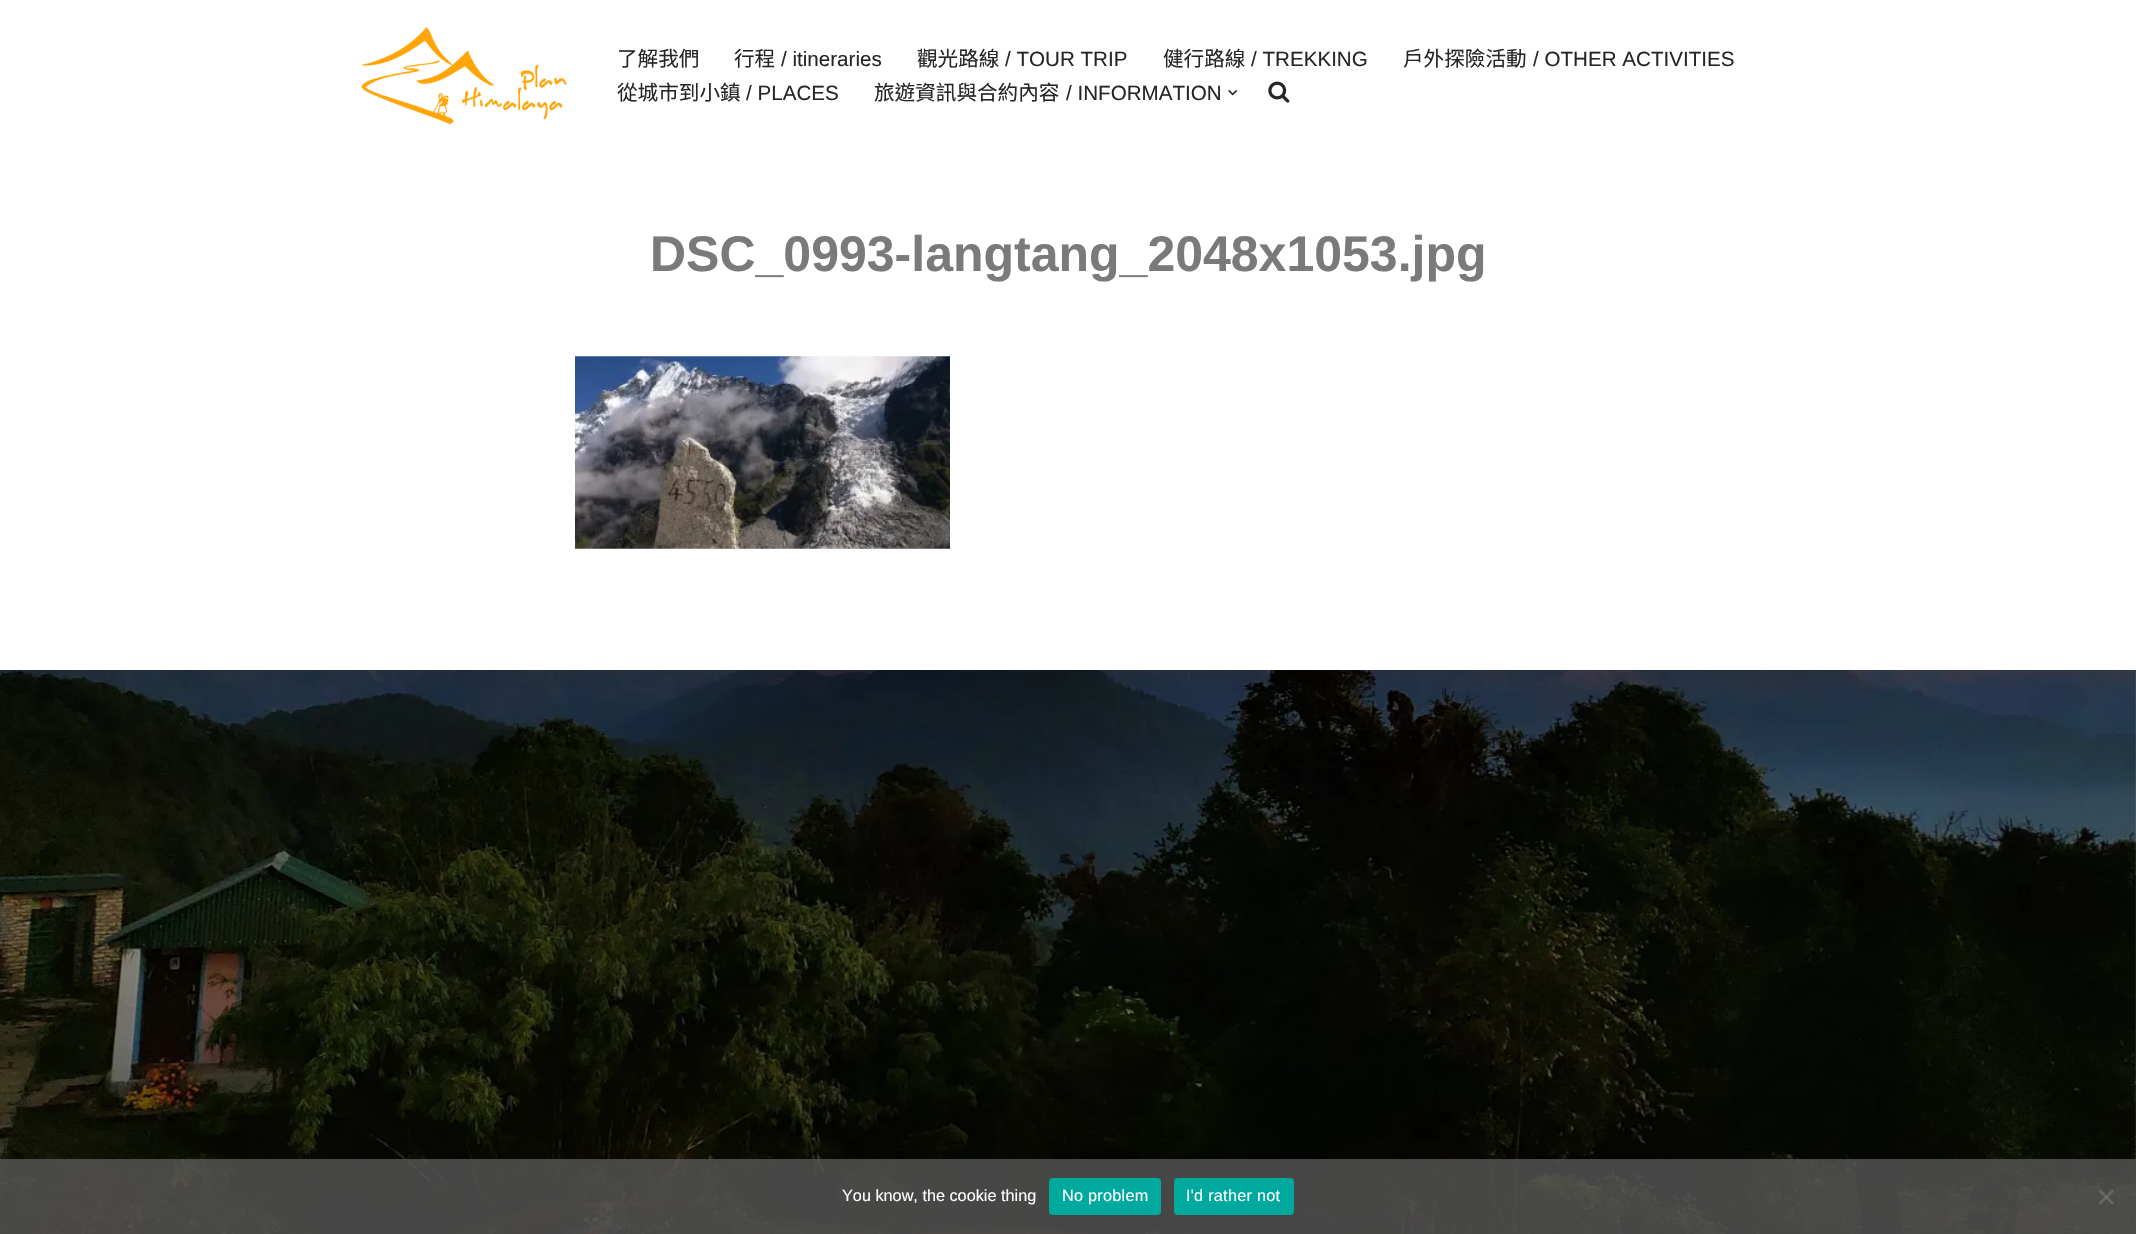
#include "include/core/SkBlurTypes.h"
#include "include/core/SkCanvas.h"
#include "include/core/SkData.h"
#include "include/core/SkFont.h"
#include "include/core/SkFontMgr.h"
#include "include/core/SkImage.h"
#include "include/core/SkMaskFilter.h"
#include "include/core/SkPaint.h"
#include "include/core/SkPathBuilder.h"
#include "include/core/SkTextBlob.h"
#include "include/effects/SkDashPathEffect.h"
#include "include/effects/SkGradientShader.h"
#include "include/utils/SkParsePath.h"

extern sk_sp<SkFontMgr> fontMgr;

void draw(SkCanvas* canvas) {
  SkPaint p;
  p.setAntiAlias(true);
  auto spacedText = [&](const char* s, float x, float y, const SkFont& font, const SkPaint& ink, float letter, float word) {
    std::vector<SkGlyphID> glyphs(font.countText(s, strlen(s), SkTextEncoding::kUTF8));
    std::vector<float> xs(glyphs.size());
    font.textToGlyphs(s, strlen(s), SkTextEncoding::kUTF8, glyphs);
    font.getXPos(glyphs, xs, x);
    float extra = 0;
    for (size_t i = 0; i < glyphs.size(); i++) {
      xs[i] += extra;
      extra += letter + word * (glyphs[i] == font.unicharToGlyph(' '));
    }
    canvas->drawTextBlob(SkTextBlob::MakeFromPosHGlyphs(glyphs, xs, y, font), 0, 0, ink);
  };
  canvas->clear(SK_ColorWHITE);
  canvas->drawImageRect(SkImages::DeferredFromEncodedData(SkData::MakeFromFileName("images/1.png")), SkRect::MakeLTRB(361, 26, 567, 125), SkSamplingOptions());
  canvas->drawImageRect(SkImages::DeferredFromEncodedData(SkData::MakeFromFileName("images/2.png")), SkRect::MakeLTRB(1228, 90, 1237, 96), SkSamplingOptions());
  canvas->drawImageRect(SkImages::DeferredFromEncodedData(SkData::MakeFromFileName("images/3.png")), SkRect::MakeLTRB(1268, 81, 1290, 103), SkSamplingOptions());
  canvas->drawImageRect(SkImages::DeferredFromEncodedData(SkData::MakeFromFileName("images/4.png")), SkRect::MakeLTRB(575, 356, 950, 549), SkSamplingOptions());
  canvas->drawImageRect(SkImages::DeferredFromEncodedData(SkData::MakeFromFileName("images/5.png")), SkRect::MakeLTRB(0, 670, 2136, 1234), SkSamplingOptions());
  {
    const SkColor colors[] = {SkColorSetARGB(0, 0, 0, 0), SkColorSetARGB(191, 0, 0, 0)};
    const float stops[] = {0.6f, 0.97f};
    const SkPoint ends[] = {{1068, 670}, {1068, 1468}};
    p.setShader(SkGradientShader::MakeLinear(ends, colors, stops, 2, SkTileMode::kClamp));
    p.setAlpha(255);
  }
  canvas->drawRect(SkRect::MakeLTRB(0, 1162, 2136, 1234), p);
  p.setShader(nullptr);
  p.setColor(SkColorSetARGB(204, 86, 86, 86));
  canvas->drawRect(SkRect::MakeLTRB(0, 1159, 2136, 1234), p);
  p.setColor(SkColorSetRGB(0, 169, 157));
  canvas->drawRoundRect(SkRect::MakeLTRB(1049, 1178, 1161, 1215), 4, 4, p);
  canvas->drawRoundRect(SkRect::MakeLTRB(1174, 1178, 1294, 1215), 4, 4, p);
  p.setColor(SkColorSetARGB(128, 128, 128, 128));
  canvas->drawPath(SkPathBuilder().moveTo(2112, 1189.5f).lineTo(2114, 1191.5f).lineTo(2100.5f, 1204.5f).lineTo(2098.5f, 1203).close().detach(), p);
  canvas->drawPath(SkPathBuilder().moveTo(2098.5f, 1191.5f).lineTo(2100.5f, 1189.5f).lineTo(2114, 1203).lineTo(2112, 1204.5f).close().detach(), p);
  SkFont font1(fontMgr->matchFamilyStyle("Noto Sans CJK TC", SkFontStyle::Normal()), 20.6f);
  font1.setSubpixel(true);
  p.setColor(SkColorSetRGB(39, 38, 38));
  canvas->drawString("了解我們", 617, 66, font1, p);
  canvas->drawString("行程", 734, 66, font1, p);
  SkFont font2(fontMgr->matchFamilyStyle("Liberation Sans", SkFontStyle::Normal()), 20.6f);
  font2.setSubpixel(true);
  canvas->drawString("/ itineraries", 781, 66, font2, p);
  canvas->drawString("觀光路線", 917, 66, font1, p);
  canvas->drawString("/ TOUR TRIP", 1005, 66, font2, p);
  canvas->drawString("健行路線", 1163, 66, font1, p);
  canvas->drawString("/ TREKKING", 1251, 66, font2, p);
  canvas->drawString("戶外探險活動", 1403, 66, font1, p);
  canvas->drawString("/ OTHER ACTIVITIES", 1533, 66, font2, p);
  canvas->drawString("從城市到小鎮", 617, 100, font1, p);
  canvas->drawString("/ PLACES", 746, 100, font2, p);
  canvas->drawString("旅遊資訊與合約內容", 874, 100, font1, p);
  canvas->drawString("/ INFORMATION", 1066, 100, font2, p);
  SkFont font3(fontMgr->matchFamilyStyle("Liberation Sans", SkFontStyle::Bold()), 50);
  font3.setSubpixel(true);
  p.setColor(SkColorSetRGB(122, 122, 122));
  canvas->drawString("DSC_0993-langtang_2048x1053.jpg", 650, 271, font3, p);
  SkFont font4(fontMgr->matchFamilyStyle("Liberation Sans", SkFontStyle::Normal()), 16.25f);
  font4.setSubpixel(true);
  p.setColor(SK_ColorWHITE);
  canvas->drawString("You know, the cookie thing", 842, 1201, font4, p);
  spacedText("No problem", 1062, 1201, font4, p, 0.25f, 0);
  spacedText("I'd rather not", 1186, 1201, font4, p, 0.25f, 0);
}
